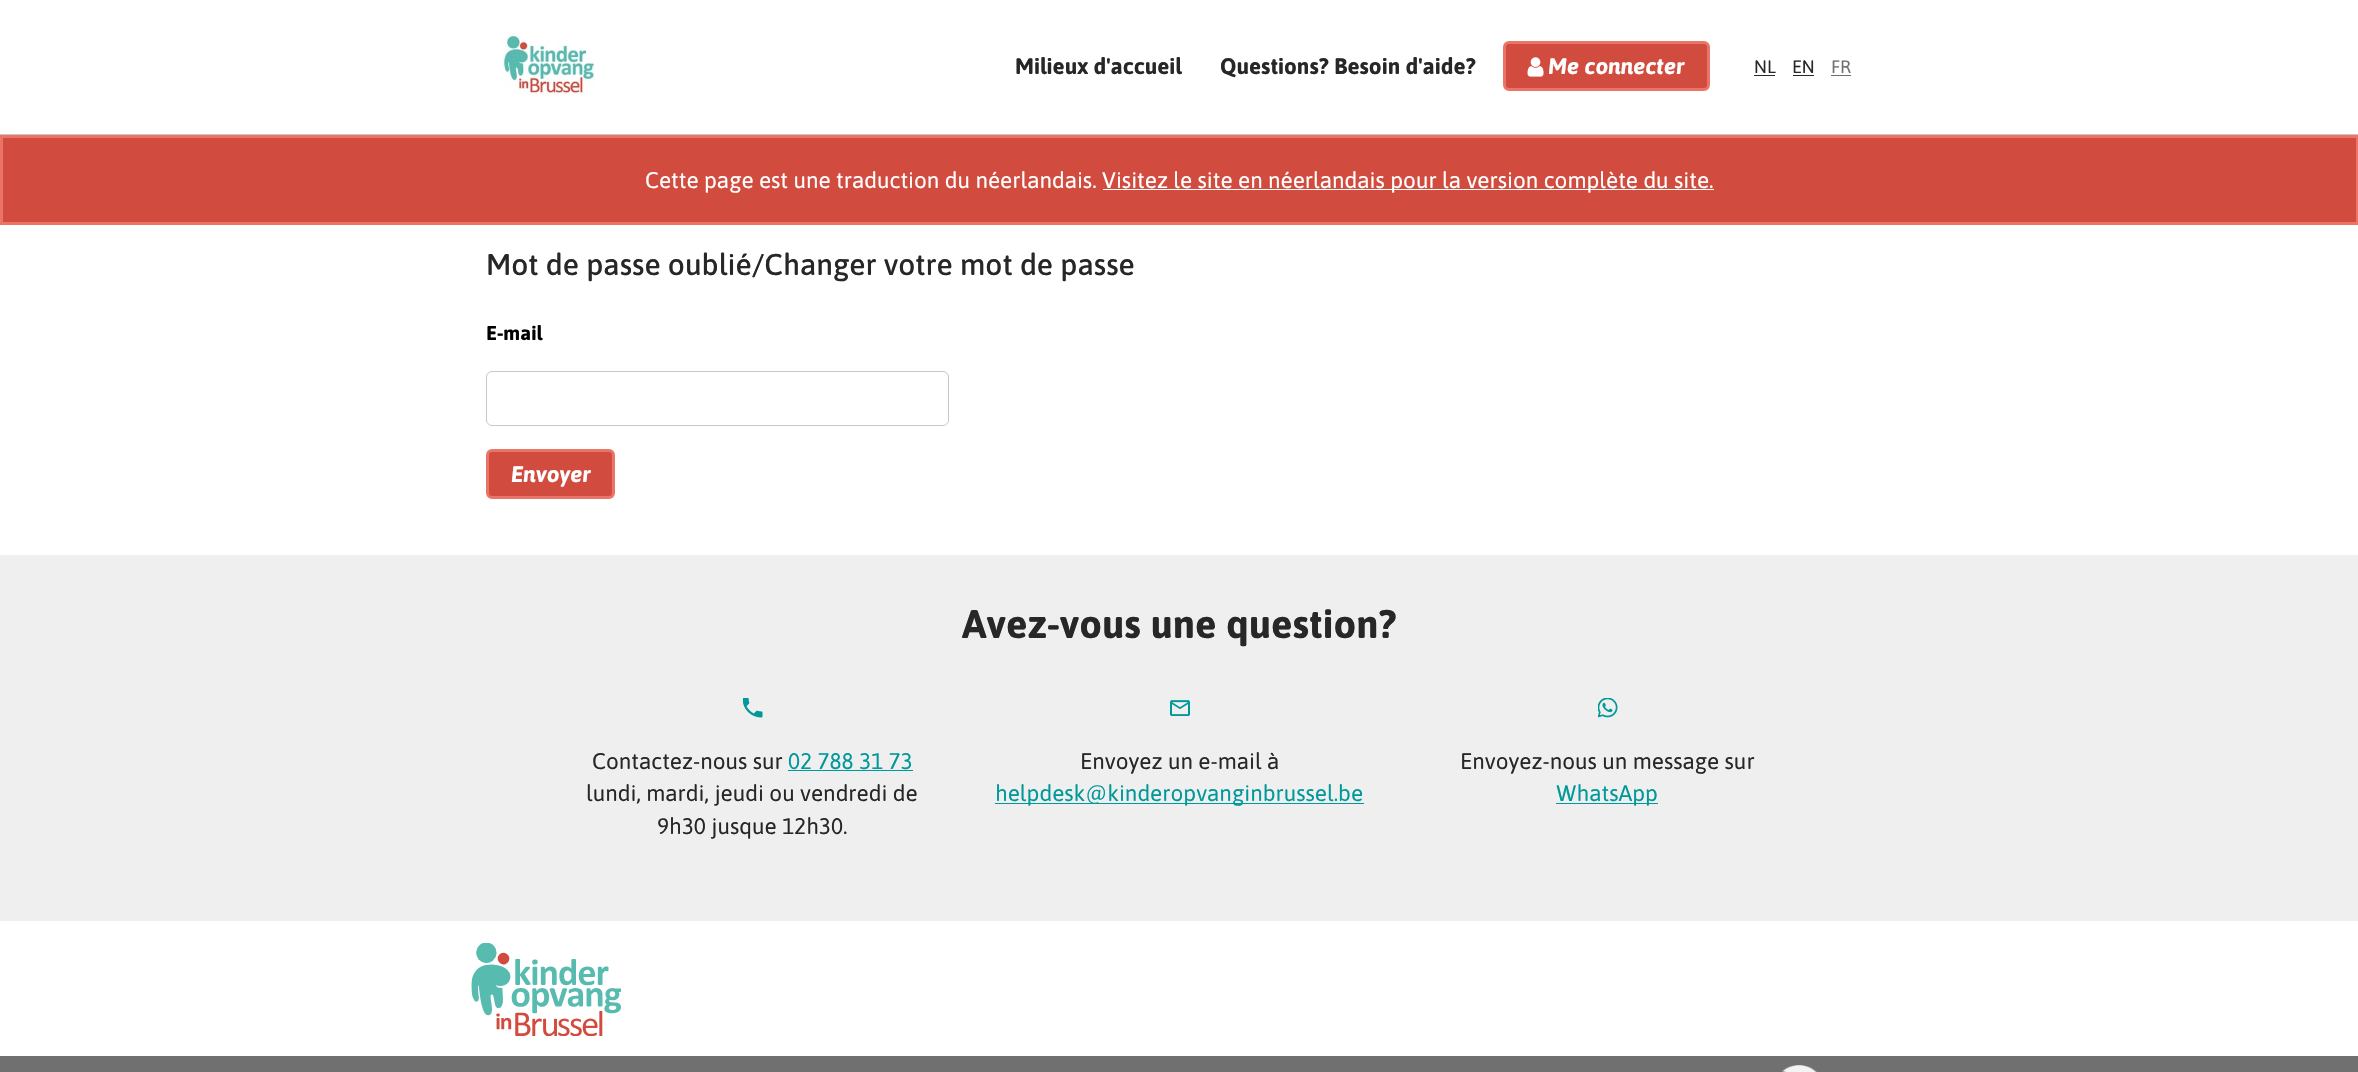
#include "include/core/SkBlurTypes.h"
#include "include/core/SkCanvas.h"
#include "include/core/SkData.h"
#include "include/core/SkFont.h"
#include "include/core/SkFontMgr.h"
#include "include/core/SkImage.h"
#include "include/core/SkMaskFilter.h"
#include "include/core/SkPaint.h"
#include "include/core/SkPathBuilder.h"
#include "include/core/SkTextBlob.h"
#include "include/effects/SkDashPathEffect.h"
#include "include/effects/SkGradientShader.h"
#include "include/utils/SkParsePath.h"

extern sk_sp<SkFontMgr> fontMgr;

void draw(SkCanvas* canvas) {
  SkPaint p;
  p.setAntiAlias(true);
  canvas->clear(SK_ColorWHITE);
  p.setColor(SkColorSetRGB(199, 199, 199));
  canvas->drawRect(SkRect::MakeLTRB(0, 134, 2358, 135), p);
  canvas->drawImageRect(SkImages::DeferredFromEncodedData(SkData::MakeFromFileName("images/1.png")), SkRect::MakeLTRB(503, 33, 595, 95), SkSamplingOptions());
  p.setColor(SkColorSetRGB(209, 76, 63));
  canvas->drawRoundRect(SkRect::MakeLTRB(1504.5f, 42.5f, 1708.5f, 89.5f), 4.5f, 4.5f, p);
  p.setStyle(SkPaint::kStroke_Style);
  p.setStrokeWidth(3);
  p.setColor(SkColorSetRGB(235, 116, 104));
  canvas->drawRoundRect(SkRect::MakeLTRB(1504.5f, 42.5f, 1708.5f, 89.5f), 4.5f, 4.5f, p);
  canvas->drawImageRect(SkImages::DeferredFromEncodedData(SkData::MakeFromFileName("images/2.png")), SkRect::MakeLTRB(1527, 57, 1544, 77), SkSamplingOptions());
  p.setStyle(SkPaint::kFill_Style);
  p.setColor(SkColorSetRGB(39, 39, 39));
  canvas->drawRect(SkRect::MakeLTRB(1754, 75, 1775, 76), p);
  canvas->drawRect(SkRect::MakeLTRB(1793, 75, 1814, 76), p);
  p.setColor(SkColorSetRGB(112, 112, 112));
  canvas->drawRect(SkRect::MakeLTRB(1831, 75, 1851, 76), p);
  p.setColor(SkColorSetRGB(209, 76, 63));
  canvas->drawRect(SkRect::MakeLTRB(1.5f, 136.5f, 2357.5f, 223.5f), p);
  p.setStyle(SkPaint::kStroke_Style);
  p.setColor(SkColorSetRGB(235, 116, 104));
  canvas->drawRect(SkRect::MakeLTRB(1.5f, 136.5f, 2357.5f, 223.5f), p);
  p.setStyle(SkPaint::kFill_Style);
  p.setColor(SK_ColorWHITE);
  canvas->drawRect(SkRect::MakeLTRB(1103, 189, 1714, 190), p);
  p.setStyle(SkPaint::kStroke_Style);
  p.setStrokeWidth(1);
  p.setColor(SkColorSetRGB(199, 199, 199));
  canvas->drawRoundRect(SkRect::MakeLTRB(486.5f, 371.5f, 948.5f, 425.5f), 5.5f, 5.5f, p);
  p.setStyle(SkPaint::kFill_Style);
  p.setColor(SkColorSetRGB(209, 76, 63));
  canvas->drawRoundRect(SkRect::MakeLTRB(487.5f, 450.5f, 613.5f, 497.5f), 4.5f, 4.5f, p);
  p.setStyle(SkPaint::kStroke_Style);
  p.setStrokeWidth(3);
  p.setColor(SkColorSetRGB(235, 116, 104));
  canvas->drawRoundRect(SkRect::MakeLTRB(487.5f, 450.5f, 613.5f, 497.5f), 4.5f, 4.5f, p);
  p.setStyle(SkPaint::kFill_Style);
  p.setColor(SkColorSetRGB(239, 239, 239));
  canvas->drawRect(SkRect::MakeLTRB(0, 555, 2358, 921), p);
  canvas->drawImageRect(SkImages::DeferredFromEncodedData(SkData::MakeFromFileName("images/3.png")), SkRect::MakeLTRB(743, 698, 763, 718), SkSamplingOptions());
  p.setColor(SkColorSetRGB(0, 152, 153));
  canvas->drawRect(SkRect::MakeLTRB(788, 770, 913, 771), p);
  canvas->drawImageRect(SkImages::DeferredFromEncodedData(SkData::MakeFromFileName("images/4.png")), SkRect::MakeLTRB(1170, 700, 1190, 716), SkSamplingOptions());
  canvas->drawRect(SkRect::MakeLTRB(995, 803, 1364, 804), p);
  canvas->drawImageRect(SkImages::DeferredFromEncodedData(SkData::MakeFromFileName("images/5.png")), SkRect::MakeLTRB(1598, 698, 1618, 718), SkSamplingOptions());
  canvas->drawRect(SkRect::MakeLTRB(1556, 803, 1658, 804), p);
  canvas->drawImageRect(SkImages::DeferredFromEncodedData(SkData::MakeFromFileName("images/6.png")), SkRect::MakeLTRB(471, 943, 621, 1036), SkSamplingOptions());
  p.setColor(SkColorSetRGB(112, 112, 112));
  canvas->drawRect(SkRect::MakeLTRB(0, 1056, 2358, 1072), p);
  canvas->drawImageRect(SkImages::DeferredFromEncodedData(SkData::MakeFromFileName("images/7.png")), SkRect::MakeLTRB(1782, 1065, 1817, 1072), SkSamplingOptions());
  SkFont font1(fontMgr->matchFamilyStyle("Asap", SkFontStyle::Bold()), 22.5f);
  font1.setSubpixel(true);
  p.setColor(SkColorSetRGB(39, 39, 39));
  canvas->drawString("Milieux d'accueil", 1015, 74, font1, p);
  canvas->drawString("Questions? Besoin d'aide?", 1220, 74, font1, p);
  SkFont font2(fontMgr->matchFamilyStyle("Asap", SkFontStyle::BoldItalic()), 22.5f);
  font2.setSubpixel(true);
  p.setColor(SK_ColorWHITE);
  canvas->drawString("Me connecter", 1548, 74, font2, p);
  SkFont font3(fontMgr->matchFamilyStyle("Asap", SkFontStyle::Normal()), 18);
  font3.setSubpixel(true);
  p.setColor(SkColorSetRGB(39, 39, 39));
  canvas->drawString("NL", 1754, 73, font3, p);
  canvas->drawString("EN", 1792, 73, font3, p);
  p.setColor(SkColorSetRGB(112, 112, 112));
  canvas->drawString("FR", 1831, 73, font3, p);
  SkFont font4(fontMgr->matchFamilyStyle("Asap", SkFontStyle::Normal()), 22.5f);
  font4.setSubpixel(true);
  p.setColor(SK_ColorWHITE);
  canvas->drawString("Cette page est une traduction du néerlandais.", 645, 188, font4, p);
  canvas->drawString("Visitez le site en néerlandais pour la version complète du site.", 1102, 188, font4, p);
  SkFont font5(fontMgr->matchFamilyStyle("Asap", SkFontStyle(500, SkFontStyle::kNormal_Width, SkFontStyle::kUpright_Slant)), 30);
  font5.setSubpixel(true);
  p.setColor(SkColorSetRGB(39, 39, 39));
  canvas->drawString("Mot de passe oublié/Changer votre mot de passe", 486, 275, font5, p);
  SkFont font6(fontMgr->matchFamilyStyle("Asap", SkFontStyle::Bold()), 20);
  font6.setSubpixel(true);
  p.setColor(SK_ColorBLACK);
  canvas->drawString("E-mail", 486, 340, font6, p);
  p.setColor(SK_ColorWHITE);
  canvas->drawString("Envoyer", 511, 482, font2, p);
  SkFont font7(fontMgr->matchFamilyStyle("Asap", SkFontStyle::Bold()), 40);
  font7.setSubpixel(true);
  p.setColor(SkColorSetRGB(39, 39, 39));
  canvas->drawString("Avez-vous une question?", 962, 638, font7, p);
  canvas->drawString("Contactez-nous sur", 592, 769, font4, p);
  p.setColor(SkColorSetRGB(0, 152, 153));
  canvas->drawString("02 788 31 73", 788, 769, font4, p);
  p.setColor(SkColorSetRGB(39, 39, 39));
  canvas->drawString("lundi, mardi, jeudi ou vendredi de", 586, 801, font4, p);
  canvas->drawString("9h30 jusque 12h30.", 657, 834, font4, p);
  canvas->drawString("Envoyez un e-mail à", 1080, 769, font4, p);
  p.setColor(SkColorSetRGB(0, 152, 153));
  canvas->drawString("helpdesk@kinderopvanginbrussel.be", 995, 801, font4, p);
  p.setColor(SkColorSetRGB(39, 39, 39));
  canvas->drawString("Envoyez-nous un message sur", 1460, 769, font4, p);
  p.setColor(SkColorSetRGB(0, 152, 153));
  canvas->drawString("WhatsApp", 1556, 801, font4, p);
}
